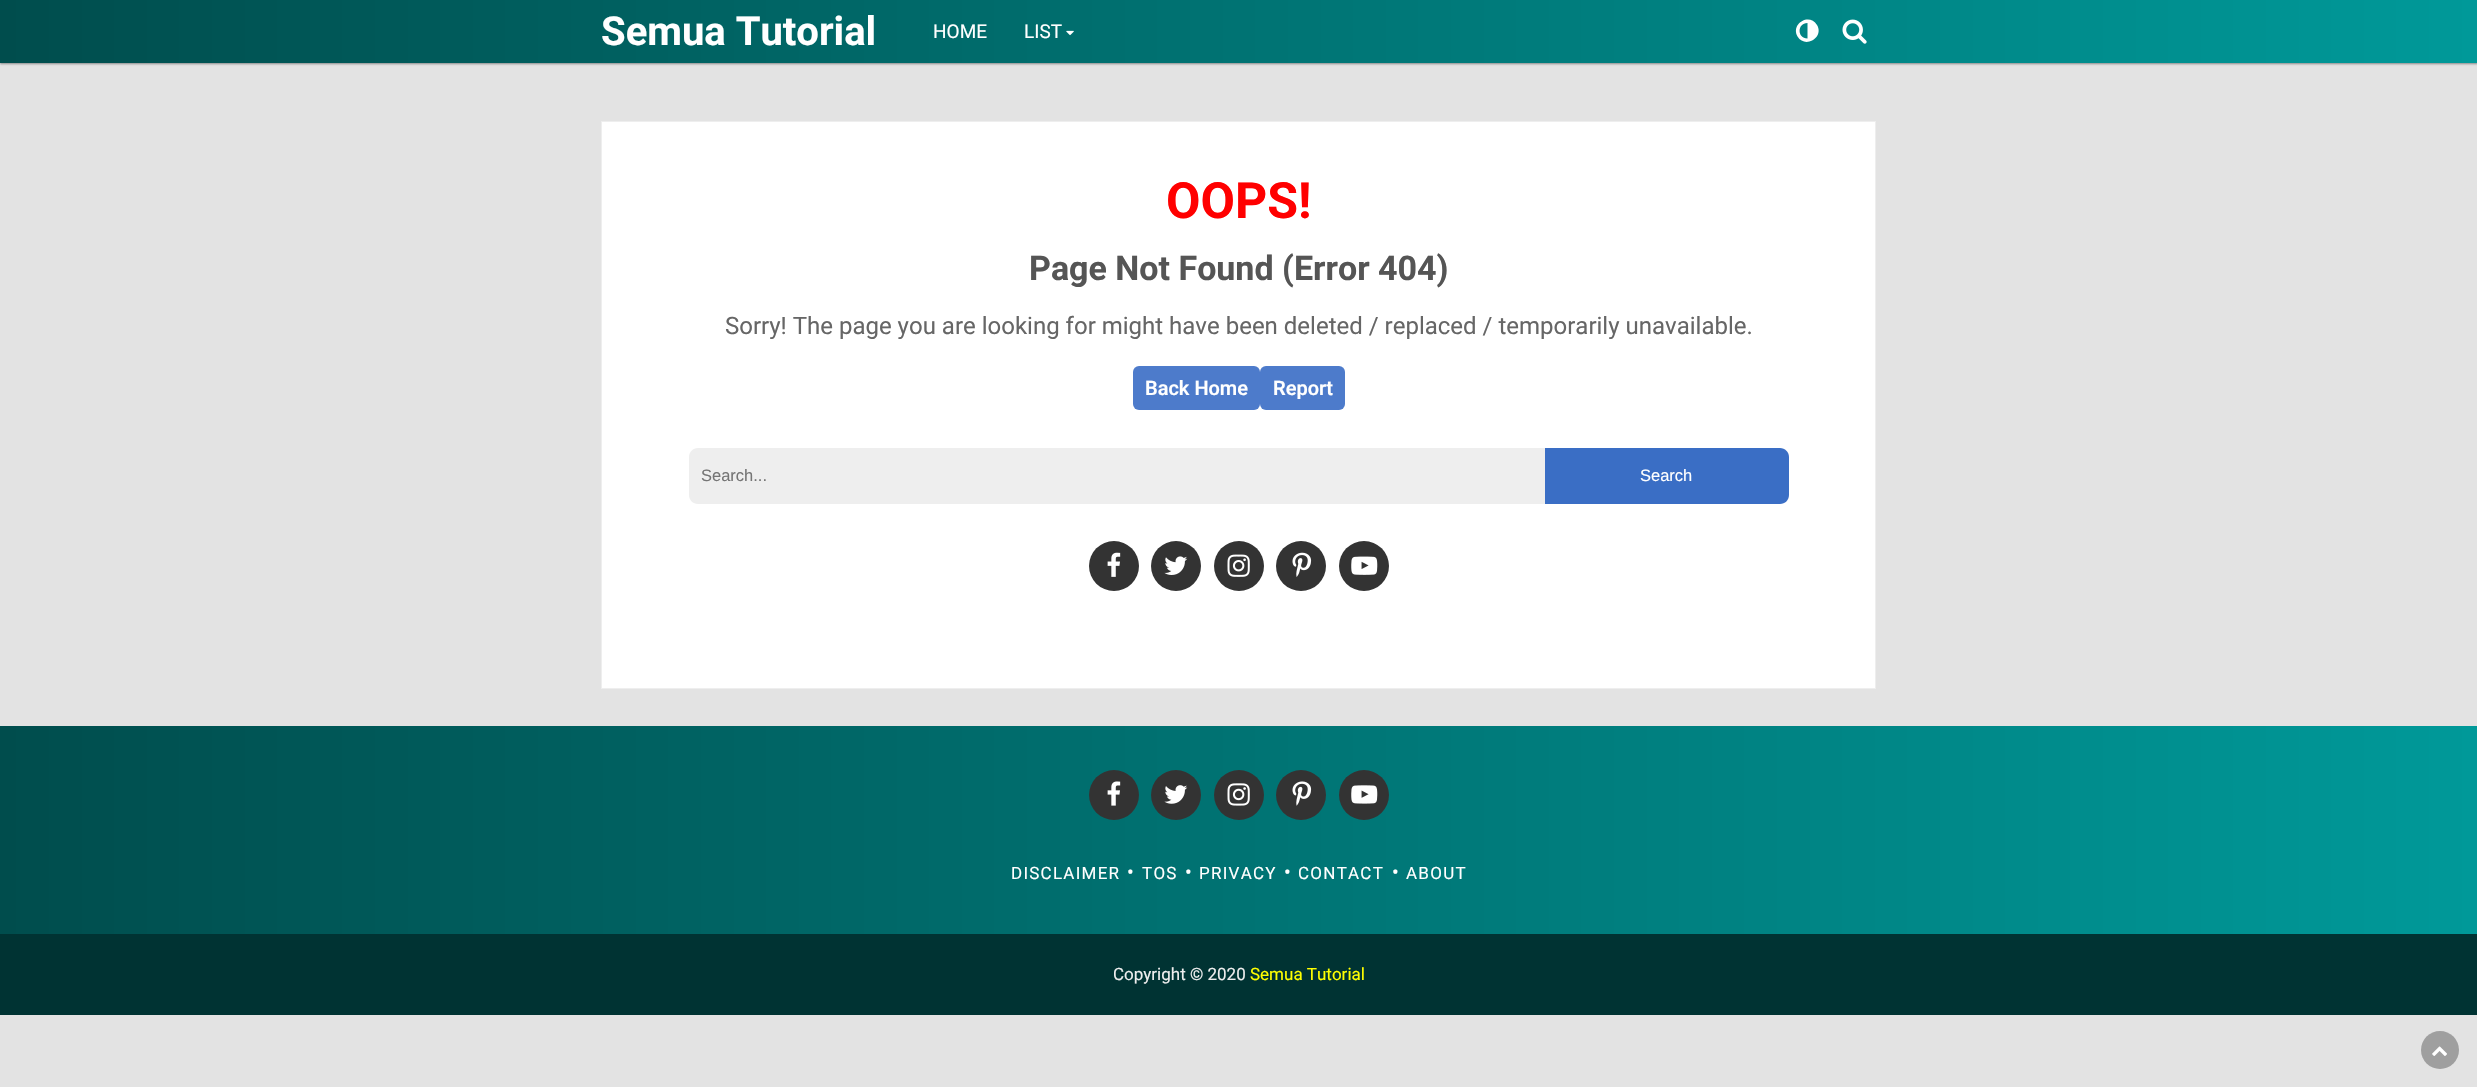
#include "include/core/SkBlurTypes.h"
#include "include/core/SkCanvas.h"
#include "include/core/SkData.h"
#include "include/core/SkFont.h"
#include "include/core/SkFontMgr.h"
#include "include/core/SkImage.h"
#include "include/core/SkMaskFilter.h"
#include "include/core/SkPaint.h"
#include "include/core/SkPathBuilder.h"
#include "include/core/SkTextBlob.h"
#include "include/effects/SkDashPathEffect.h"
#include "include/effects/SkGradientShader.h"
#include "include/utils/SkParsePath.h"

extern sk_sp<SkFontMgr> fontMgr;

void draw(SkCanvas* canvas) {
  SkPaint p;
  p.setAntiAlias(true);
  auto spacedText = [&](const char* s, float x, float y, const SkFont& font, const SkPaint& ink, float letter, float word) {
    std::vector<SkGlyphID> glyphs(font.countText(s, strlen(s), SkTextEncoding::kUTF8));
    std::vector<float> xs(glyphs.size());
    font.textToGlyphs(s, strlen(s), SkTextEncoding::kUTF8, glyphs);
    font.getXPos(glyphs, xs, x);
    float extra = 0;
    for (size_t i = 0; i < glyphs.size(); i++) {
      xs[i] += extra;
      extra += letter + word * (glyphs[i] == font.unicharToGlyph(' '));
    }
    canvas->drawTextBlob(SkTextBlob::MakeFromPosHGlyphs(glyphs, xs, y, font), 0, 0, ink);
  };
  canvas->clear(SkColorSetRGB(227, 227, 227));
  p.setColor(SkColorSetARGB(102, 0, 0, 0));
  p.setMaskFilter(SkMaskFilter::MakeBlur(kNormal_SkBlurStyle, 1));
  canvas->drawRect(SkRect::MakeLTRB(0, 1, 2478, 64), p);
  p.setMaskFilter(nullptr);
  {
    const SkColor colors[] = {SkColorSetRGB(0, 77, 77), SkColorSetRGB(0, 153, 153)};
    const float stops[] = {0, 1};
    const SkPoint ends[] = {{0, 31}, {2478, 31}};
    p.setShader(SkGradientShader::MakeLinear(ends, colors, stops, 2, SkTileMode::kClamp));
    p.setAlpha(255);
  }
  canvas->drawRect(SkRect::MakeLTRB(0, 0, 2477, 63), p);
  canvas->drawImageRect(SkImages::DeferredFromEncodedData(SkData::MakeFromFileName("images/1.png")), SkRect::MakeLTRB(1066, 30, 1074, 36), SkSamplingOptions());
  p.setShader(nullptr);
  p.setColor(SK_ColorWHITE);
  canvas->drawPath(SkPathBuilder().moveTo(1807.5f, 38.5f).lineTo(1807.5f, 23).cubicTo(1797, 23, 1797, 38.5f, 1807.5f, 38.5f).close().moveTo(1817, 25).cubicTo(1824.5f, 37.5f, 1805, 49, 1797.5f, 36.5f).cubicTo(1790.5f, 23.5f, 1809.5f, 12.5f, 1817, 25).close().detach(), p);
  canvas->drawImageRect(SkImages::DeferredFromEncodedData(SkData::MakeFromFileName("images/2.png")), SkRect::MakeLTRB(1842, 19, 1867, 44), SkSamplingOptions());
  canvas->drawRect(SkRect::MakeLTRB(601.5f, 121.5f, 1875.5f, 688.5f), p);
  p.setStyle(SkPaint::kStroke_Style);
  p.setStrokeWidth(1);
  p.setColor(SkColorSetRGB(238, 238, 238));
  canvas->drawRect(SkRect::MakeLTRB(601.5f, 121.5f, 1875.5f, 688.5f), p);
  p.setStyle(SkPaint::kFill_Style);
  p.setColor(SkColorSetRGB(77, 123, 203));
  canvas->drawRoundRect(SkRect::MakeLTRB(1133, 366, 1260, 410), 6, 6, p);
  canvas->drawRoundRect(SkRect::MakeLTRB(1260, 366, 1345, 410), 6, 6, p);
  p.setColor(SkColorSetRGB(238, 238, 238));
  canvas->drawPath(SkPathBuilder().moveTo(698, 448).lineTo(1545, 448).lineTo(1545, 504).lineTo(698, 504).cubicTo(693, 504, 689, 500, 689, 495).lineTo(689, 457).cubicTo(689, 452, 693, 448, 698, 448).close().detach(), p);
  p.setColor(SkColorSetRGB(58, 110, 197));
  canvas->drawPath(SkPathBuilder().moveTo(1545, 448).lineTo(1780, 448).cubicTo(1785, 448, 1789, 452, 1789, 457).lineTo(1789, 495).cubicTo(1789, 500, 1785, 504, 1780, 504).lineTo(1545, 504).close().detach(), p);
  p.setColor(SkColorSetRGB(51, 51, 51));
  canvas->drawCircle(1114, 566, 25, p);
  canvas->drawImageRect(SkImages::DeferredFromEncodedData(SkData::MakeFromFileName("images/3.png")), SkRect::MakeLTRB(1107, 552, 1121, 577), SkSamplingOptions());
  canvas->drawCircle(1176, 566, 25, p);
  canvas->drawImageRect(SkImages::DeferredFromEncodedData(SkData::MakeFromFileName("images/4.png")), SkRect::MakeLTRB(1164, 556, 1188, 575), SkSamplingOptions());
  canvas->drawCircle(1239, 566, 25, p);
  canvas->drawImageRect(SkImages::DeferredFromEncodedData(SkData::MakeFromFileName("images/5.png")), SkRect::MakeLTRB(1227, 554, 1250, 577), SkSamplingOptions());
  canvas->drawCircle(1301, 566, 25, p);
  canvas->drawImageRect(SkImages::DeferredFromEncodedData(SkData::MakeFromFileName("images/6.png")), SkRect::MakeLTRB(1292, 552, 1312, 577), SkSamplingOptions());
  canvas->drawCircle(1364, 566, 25, p);
  canvas->drawImageRect(SkImages::DeferredFromEncodedData(SkData::MakeFromFileName("images/7.png")), SkRect::MakeLTRB(1351, 556, 1378, 575), SkSamplingOptions());
  {
    const SkColor colors[] = {SkColorSetRGB(0, 77, 77), SkColorSetRGB(0, 153, 153)};
    const float stops[] = {0, 1};
    const SkPoint ends[] = {{0, 830}, {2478, 830}};
    p.setShader(SkGradientShader::MakeLinear(ends, colors, stops, 2, SkTileMode::kClamp));
    p.setAlpha(255);
  }
  canvas->drawRect(SkRect::MakeLTRB(0, 726, 2477, 934), p);
  p.setShader(nullptr);
  p.setColor(SkColorSetRGB(51, 51, 51));
  canvas->drawCircle(1114, 795, 25, p);
  canvas->drawImageRect(SkImages::DeferredFromEncodedData(SkData::MakeFromFileName("images/8.png")), SkRect::MakeLTRB(1107, 781, 1121, 806), SkSamplingOptions());
  canvas->drawCircle(1176, 795, 25, p);
  canvas->drawImageRect(SkImages::DeferredFromEncodedData(SkData::MakeFromFileName("images/9.png")), SkRect::MakeLTRB(1164, 785, 1188, 804), SkSamplingOptions());
  canvas->drawCircle(1239, 795, 25, p);
  canvas->drawImageRect(SkImages::DeferredFromEncodedData(SkData::MakeFromFileName("images/10.png")), SkRect::MakeLTRB(1227, 783, 1250, 806), SkSamplingOptions());
  canvas->drawCircle(1301, 795, 25, p);
  canvas->drawImageRect(SkImages::DeferredFromEncodedData(SkData::MakeFromFileName("images/11.png")), SkRect::MakeLTRB(1292, 781, 1312, 806), SkSamplingOptions());
  canvas->drawCircle(1364, 795, 25, p);
  canvas->drawImageRect(SkImages::DeferredFromEncodedData(SkData::MakeFromFileName("images/12.png")), SkRect::MakeLTRB(1351, 785, 1378, 804), SkSamplingOptions());
  p.setColor(SkColorSetRGB(0, 51, 51));
  canvas->drawRect(SkRect::MakeLTRB(0, 934, 2477, 1015), p);
  p.setColor(SkColorSetRGB(159, 159, 159));
  canvas->drawCircle(2440, 1050, 19, p);
  canvas->drawImageRect(SkImages::DeferredFromEncodedData(SkData::MakeFromFileName("images/13.png")), SkRect::MakeLTRB(2432, 1046, 2447, 1056), SkSamplingOptions());
  SkFont font1(fontMgr->matchFamilyStyle("Roboto", SkFontStyle::Bold()), 40);
  font1.setSubpixel(true);
  p.setColor(SK_ColorWHITE);
  canvas->drawString("Semua Tutorial", 601, 45, font1, p);
  SkFont font2(fontMgr->matchFamilyStyle("Roboto", SkFontStyle::Normal()), 19);
  font2.setSubpixel(true);
  canvas->drawString("HOME", 933, 38, font2, p);
  canvas->drawString("LIST", 1024, 38, font2, p);
  SkFont font3(fontMgr->matchFamilyStyle("Roboto", SkFontStyle::Bold()), 50);
  font3.setSubpixel(true);
  p.setColor(SkColorSetRGB(255, 0, 0));
  canvas->drawString("OOPS!", 1166, 218, font3, p);
  SkFont font4(fontMgr->matchFamilyStyle("Roboto", SkFontStyle::Bold()), 34);
  font4.setSubpixel(true);
  p.setColor(SkColorSetRGB(85, 85, 85));
  canvas->drawString("Page Not Found (Error 404)", 1029, 280, font4, p);
  SkFont font5(fontMgr->matchFamilyStyle("Roboto", SkFontStyle::Normal()), 24);
  font5.setSubpixel(true);
  p.setColor(SkColorSetRGB(102, 102, 102));
  canvas->drawString("Sorry! The page you are looking for might have been deleted / replaced / temporarily unavailable.", 725, 334, font5, p);
  SkFont font6(fontMgr->matchFamilyStyle("Roboto", SkFontStyle(600, SkFontStyle::kNormal_Width, SkFontStyle::kUpright_Slant)), 20);
  font6.setSubpixel(true);
  p.setColor(SK_ColorWHITE);
  canvas->drawString("Back Home", 1145, 395, font6, p);
  canvas->drawString("Report", 1273, 395, font6, p);
  SkFont font7(fontMgr->matchFamilyStyle("Liberation Sans", SkFontStyle::Normal()), 16.5f);
  font7.setSubpixel(true);
  p.setColor(SkColorSetRGB(117, 117, 117));
  canvas->drawString("Search...", 701, 481, font7, p);
  p.setColor(SK_ColorWHITE);
  canvas->drawString("Search", 1640, 481, font7, p);
  SkFont font8(fontMgr->matchFamilyStyle("Roboto", SkFontStyle::Normal()), 17);
  font8.setSubpixel(true);
  spacedText("DISCLAIMER", 1011, 879, font8, p, 1.25f, 0);
  SkFont font9(fontMgr->matchFamilyStyle("Roboto", SkFontStyle::Normal()), 20);
  font9.setSubpixel(true);
  canvas->drawString("•", 1127, 879, font9, p);
  spacedText("TOS", 1142, 879, font8, p, 1.25f, 0);
  canvas->drawString("•", 1185, 879, font9, p);
  spacedText("PRIVACY", 1199, 879, font8, p, 1.25f, 0);
  canvas->drawString("•", 1284, 879, font9, p);
  spacedText("CONTACT", 1298, 879, font8, p, 1.25f, 0);
  canvas->drawString("•", 1392, 879, font9, p);
  spacedText("ABOUT", 1406, 879, font8, p, 1.25f, 0);
  p.setColor(SkColorSetRGB(238, 238, 238));
  canvas->drawString("Copyright © 2020", 1113, 980, font8, p);
  p.setColor(SkColorSetRGB(255, 255, 0));
  canvas->drawString("Semua Tutorial", 1250, 980, font8, p);
}
